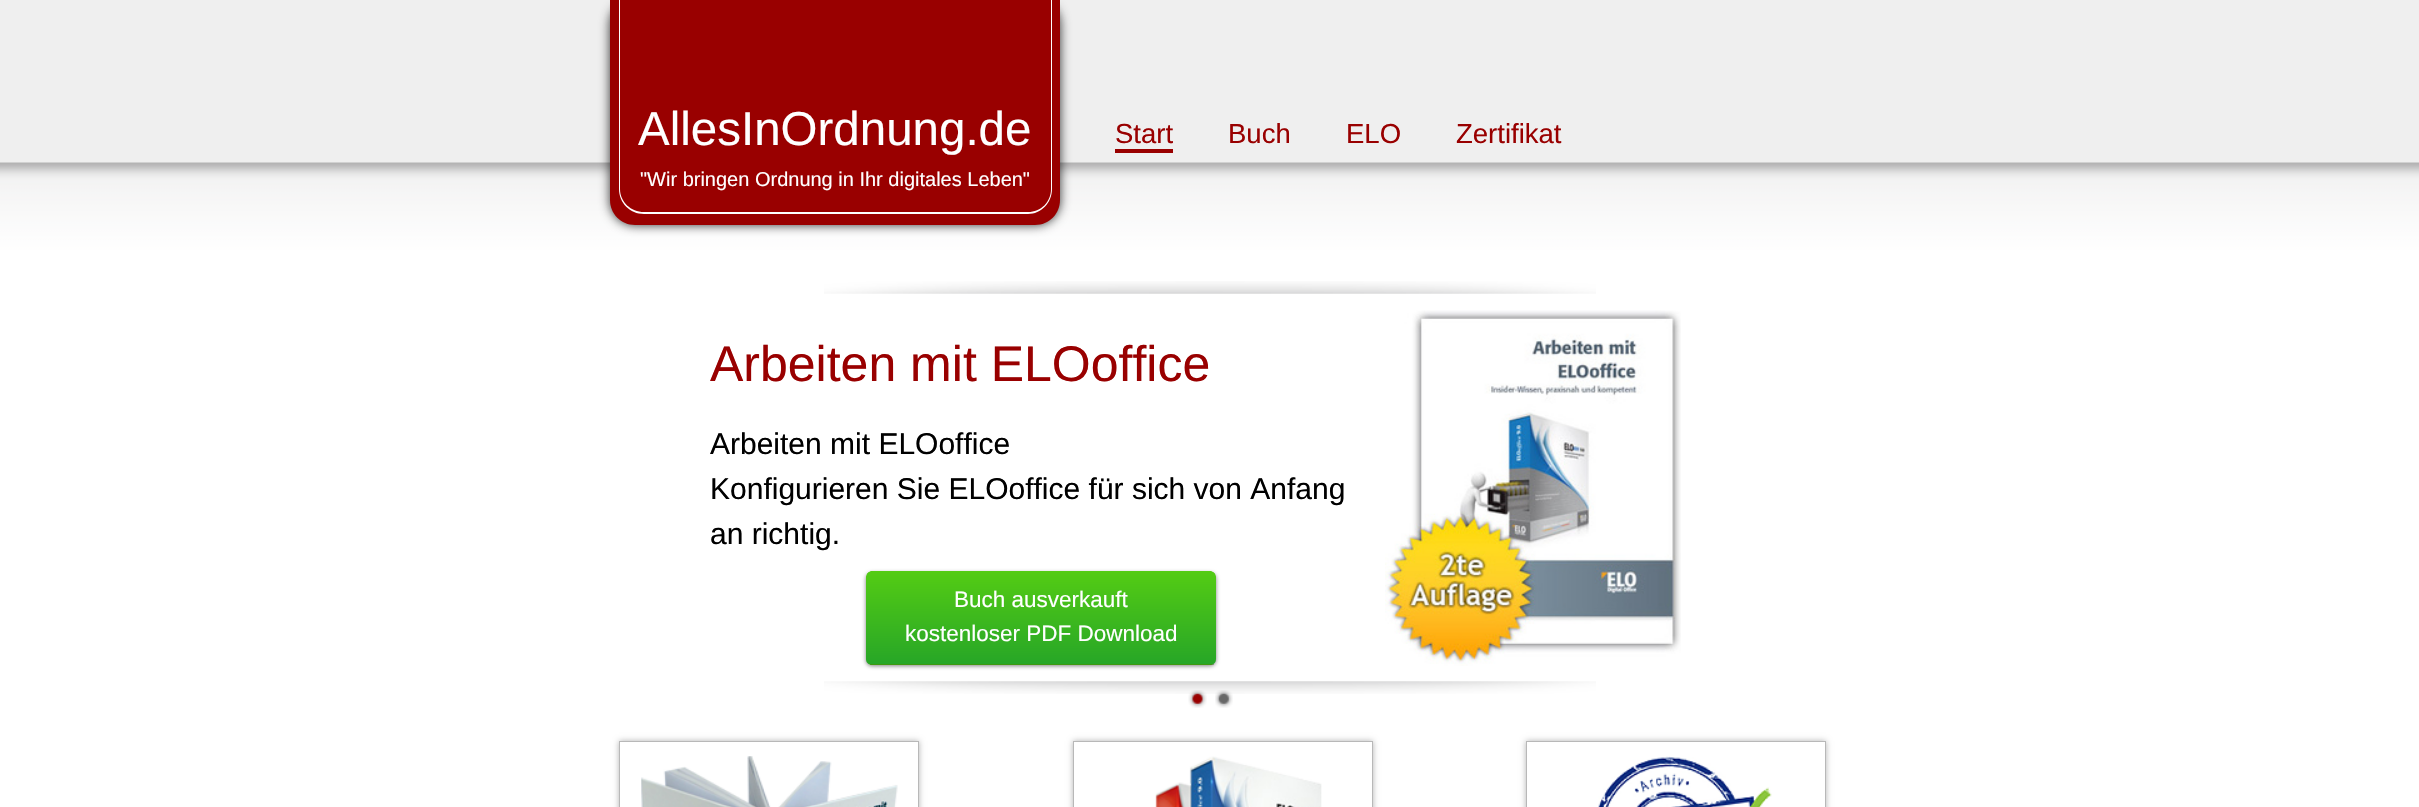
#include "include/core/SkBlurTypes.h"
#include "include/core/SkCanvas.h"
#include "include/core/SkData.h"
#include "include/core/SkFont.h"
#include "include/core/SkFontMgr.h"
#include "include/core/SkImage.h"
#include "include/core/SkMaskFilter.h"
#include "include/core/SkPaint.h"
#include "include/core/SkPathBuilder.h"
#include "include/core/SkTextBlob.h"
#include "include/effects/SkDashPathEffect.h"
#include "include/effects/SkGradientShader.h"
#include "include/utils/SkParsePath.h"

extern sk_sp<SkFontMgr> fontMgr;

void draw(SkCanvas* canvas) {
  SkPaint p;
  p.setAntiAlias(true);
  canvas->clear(SK_ColorWHITE);
  p.setColor(SkColorSetRGB(239, 239, 239));
  canvas->drawRect(SkRect::MakeLTRB(0, 0, 2419, 162), p);
  canvas->drawImageRect(SkImages::DeferredFromEncodedData(SkData::MakeFromFileName("images/1.png")), SkRect::MakeLTRB(0, 162, 2419, 250), SkSamplingOptions());
  p.setColor(SkColorSetARGB(204, 0, 0, 0));
  p.setMaskFilter(SkMaskFilter::MakeBlur(kNormal_SkBlurStyle, 5.5f));
  canvas->drawRoundRect(SkRect::MakeLTRB(610, 0, 1060, 225), 25, 25, p);
  p.setMaskFilter(nullptr);
  p.setColor(SkColorSetRGB(153, 0, 0));
  canvas->drawPath(SkPathBuilder().moveTo(610, 0).lineTo(1060, 0).lineTo(1060, 200).cubicTo(1060, 214, 1049, 225, 1035, 225).lineTo(635, 225).cubicTo(621, 225, 610, 214, 610, 200).close().detach(), p);
  p.setColor(SK_ColorWHITE);
  canvas->drawPath(SkPathBuilder(SkPathFillType::kEvenOdd).moveTo(619, 0).lineTo(1052, 0).lineTo(1052, 189).cubicTo(1052, 203, 1041, 214, 1028, 214).lineTo(644, 214).cubicTo(630, 214, 619, 203, 619, 189).close().moveTo(620, 0).lineTo(1051, 0).lineTo(1051, 189).cubicTo(1051, 202, 1041, 212, 1028, 212).lineTo(644, 212).cubicTo(631, 212, 620, 202, 620, 189).close().detach(), p);
  p.setColor(SkColorSetRGB(153, 0, 0));
  canvas->drawRect(SkRect::MakeLTRB(1115, 149, 1173, 153), p);
  canvas->drawImageRect(SkImages::DeferredFromEncodedData(SkData::MakeFromFileName("images/2.png")), SkRect::MakeLTRB(824, 281, 1596, 294), SkSamplingOptions());
  p.setColor(SkColorSetARGB(128, 0, 0, 0));
  p.setMaskFilter(SkMaskFilter::MakeBlur(kNormal_SkBlurStyle, 2));
  canvas->drawRoundRect(SkRect::MakeLTRB(866, 573, 1216, 666), 6, 6, p);
  p.setMaskFilter(nullptr);
  canvas->save();
  canvas->clipPath(SkPathBuilder().moveTo(872, 571).lineTo(1210, 571).cubicTo(1213.5f, 571, 1216, 573.5f, 1216, 577).lineTo(1216, 659).cubicTo(1216, 662.5f, 1213.5f, 665, 1210, 665).lineTo(872, 665).cubicTo(868.5f, 665, 866, 662.5f, 866, 659).lineTo(866, 577).cubicTo(866, 573.5f, 868.5f, 571, 872, 571).close().detach(), true);
  {
    const SkColor colors[] = {SkColorSetRGB(39, 166, 39), SkColorSetRGB(84, 204, 20)};
    const float stops[] = {0, 1};
    const SkPoint ends[] = {{1041, 664}, {1041, 571}};
    p.setShader(SkGradientShader::MakeLinear(ends, colors, stops, 2, SkTileMode::kClamp));
    p.setAlpha(255);
  }
  canvas->drawPath(SkPathBuilder().moveTo(872, 571).lineTo(1210, 571).cubicTo(1213.5f, 571, 1216, 573.5f, 1216, 577).lineTo(1216, 664).lineTo(866, 664).lineTo(866, 577).cubicTo(866, 573.5f, 868.5f, 571, 872, 571).close().detach(), p);
  {
    const SkColor colors[] = {SkColorSetRGB(39, 166, 39), SkColorSetRGB(84, 204, 20)};
    const float stops[] = {0, 1};
    const SkPoint ends[] = {{1041, 756}, {1041, 664}};
    p.setShader(SkGradientShader::MakeLinear(ends, colors, stops, 2, SkTileMode::kClamp));
    p.setAlpha(255);
  }
  canvas->drawRect(SkRect::MakeLTRB(866, 664, 1216, 665), p);
  canvas->restore();
  p.setShader(nullptr);
  p.setColor(SkColorSetARGB(64, 0, 0, 0));
  canvas->drawRect(SkRect::MakeLTRB(870, 664, 1214, 665), p);
  canvas->drawImageRect(SkImages::DeferredFromEncodedData(SkData::MakeFromFileName("images/3.png")), SkRect::MakeLTRB(1385, 310, 1681, 666), SkSamplingOptions());
  canvas->drawImageRect(SkImages::DeferredFromEncodedData(SkData::MakeFromFileName("images/4.png")), SkRect::MakeLTRB(824, 681, 1596, 694), SkSamplingOptions());
  canvas->drawImageRect(SkImages::DeferredFromEncodedData(SkData::MakeFromFileName("images/5.png")), SkRect::MakeLTRB(1188, 690, 1207, 708), SkSamplingOptions());
  canvas->drawImageRect(SkImages::DeferredFromEncodedData(SkData::MakeFromFileName("images/6.png")), SkRect::MakeLTRB(1215, 690, 1233, 708), SkSamplingOptions());
  canvas->save();
  canvas->clipPath(SkPathBuilder(SkPathFillType::kEvenOdd).moveTo(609, 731).lineTo(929, 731).lineTo(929, 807).lineTo(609, 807).close().moveTo(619, 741).lineTo(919, 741).lineTo(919, 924).lineTo(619, 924).close().detach(), true);
  p.setColor(SkColorSetARGB(77, 0, 0, 0));
  p.setMaskFilter(SkMaskFilter::MakeBlur(kNormal_SkBlurStyle, 3));
  canvas->drawRect(SkRect::MakeLTRB(619, 741, 919, 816), p);
  p.setMaskFilter(nullptr);
  canvas->restore();
  p.setStyle(SkPaint::kStroke_Style);
  p.setStrokeWidth(1);
  p.setColor(SkColorSetRGB(184, 184, 184));
  canvas->drawRect(SkRect::MakeLTRB(619.5f, 741.5f, 918.5f, 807.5f), p);
  canvas->drawImageRect(SkImages::DeferredFromEncodedData(SkData::MakeFromFileName("images/7.png")), SkRect::MakeLTRB(641, 756, 898, 807), SkSamplingOptions());
  canvas->save();
  canvas->clipPath(SkPathBuilder(SkPathFillType::kEvenOdd).moveTo(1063, 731).lineTo(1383, 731).lineTo(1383, 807).lineTo(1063, 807).close().moveTo(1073, 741).lineTo(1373, 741).lineTo(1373, 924).lineTo(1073, 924).close().detach(), true);
  p.setStyle(SkPaint::kFill_Style);
  p.setColor(SkColorSetARGB(77, 0, 0, 0));
  p.setMaskFilter(SkMaskFilter::MakeBlur(kNormal_SkBlurStyle, 3));
  canvas->drawRect(SkRect::MakeLTRB(1073, 741, 1373, 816), p);
  p.setMaskFilter(nullptr);
  canvas->restore();
  p.setStyle(SkPaint::kStroke_Style);
  p.setColor(SkColorSetRGB(184, 184, 184));
  canvas->drawRect(SkRect::MakeLTRB(1073.5f, 741.5f, 1372.5f, 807.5f), p);
  canvas->drawImageRect(SkImages::DeferredFromEncodedData(SkData::MakeFromFileName("images/8.png")), SkRect::MakeLTRB(1155, 756, 1322, 807), SkSamplingOptions());
  canvas->save();
  canvas->clipPath(SkPathBuilder(SkPathFillType::kEvenOdd).moveTo(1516, 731).lineTo(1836, 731).lineTo(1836, 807).lineTo(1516, 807).close().moveTo(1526, 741).lineTo(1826, 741).lineTo(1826, 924).lineTo(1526, 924).close().detach(), true);
  p.setStyle(SkPaint::kFill_Style);
  p.setColor(SkColorSetARGB(77, 0, 0, 0));
  p.setMaskFilter(SkMaskFilter::MakeBlur(kNormal_SkBlurStyle, 3));
  canvas->drawRect(SkRect::MakeLTRB(1526, 741, 1826, 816), p);
  p.setMaskFilter(nullptr);
  canvas->restore();
  p.setStyle(SkPaint::kStroke_Style);
  p.setColor(SkColorSetRGB(184, 184, 184));
  canvas->drawRect(SkRect::MakeLTRB(1526.5f, 741.5f, 1825.5f, 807.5f), p);
  canvas->drawImageRect(SkImages::DeferredFromEncodedData(SkData::MakeFromFileName("images/9.png")), SkRect::MakeLTRB(1598, 756, 1772, 807), SkSamplingOptions());
  SkFont font1(fontMgr->matchFamilyStyle("Liberation Sans", SkFontStyle::Normal()), 47.5f);
  font1.setSubpixel(true);
  p.setStyle(SkPaint::kFill_Style);
  p.setColor(SK_ColorWHITE);
  canvas->drawString("AllesInOrdnung.de", 638, 145, font1, p);
  SkFont font2(fontMgr->matchFamilyStyle("Liberation Sans", SkFontStyle::Normal()), 20);
  font2.setSubpixel(true);
  canvas->drawString("\"Wir bringen Ordnung in Ihr digitales Leben\"", 640, 186, font2, p);
  SkFont font3(fontMgr->matchFamilyStyle("Liberation Sans", SkFontStyle::Normal()), 27.5f);
  font3.setSubpixel(true);
  p.setColor(SkColorSetRGB(153, 0, 0));
  canvas->drawString("Start", 1115, 143, font3, p);
  canvas->drawString("Buch", 1228, 143, font3, p);
  canvas->drawString("ELO", 1346, 143, font3, p);
  canvas->drawString("Zertifikat", 1456, 143, font3, p);
  SkFont font4(fontMgr->matchFamilyStyle("Liberation Sans", SkFontStyle::Normal()), 50);
  font4.setSubpixel(true);
  canvas->drawString("Arbeiten mit ELOoffice", 710, 381, font4, p);
  SkFont font5(fontMgr->matchFamilyStyle("Liberation Sans", SkFontStyle::Normal()), 30);
  font5.setSubpixel(true);
  p.setColor(SK_ColorBLACK);
  canvas->drawString("Arbeiten mit ELOoffice", 710, 454, font5, p);
  canvas->drawString("Konfigurieren Sie ELOoffice für sich von Anfang", 710, 499, font5, p);
  canvas->drawString("an richtig.", 710, 544, font5, p);
  SkFont font6(fontMgr->matchFamilyStyle("Liberation Sans", SkFontStyle::Normal()), 22.5f);
  font6.setSubpixel(true);
  p.setColor(SK_ColorWHITE);
  canvas->drawString("Buch ausverkauft", 954, 607, font6, p);
  canvas->drawString("kostenloser PDF Download", 905, 641, font6, p);
}
